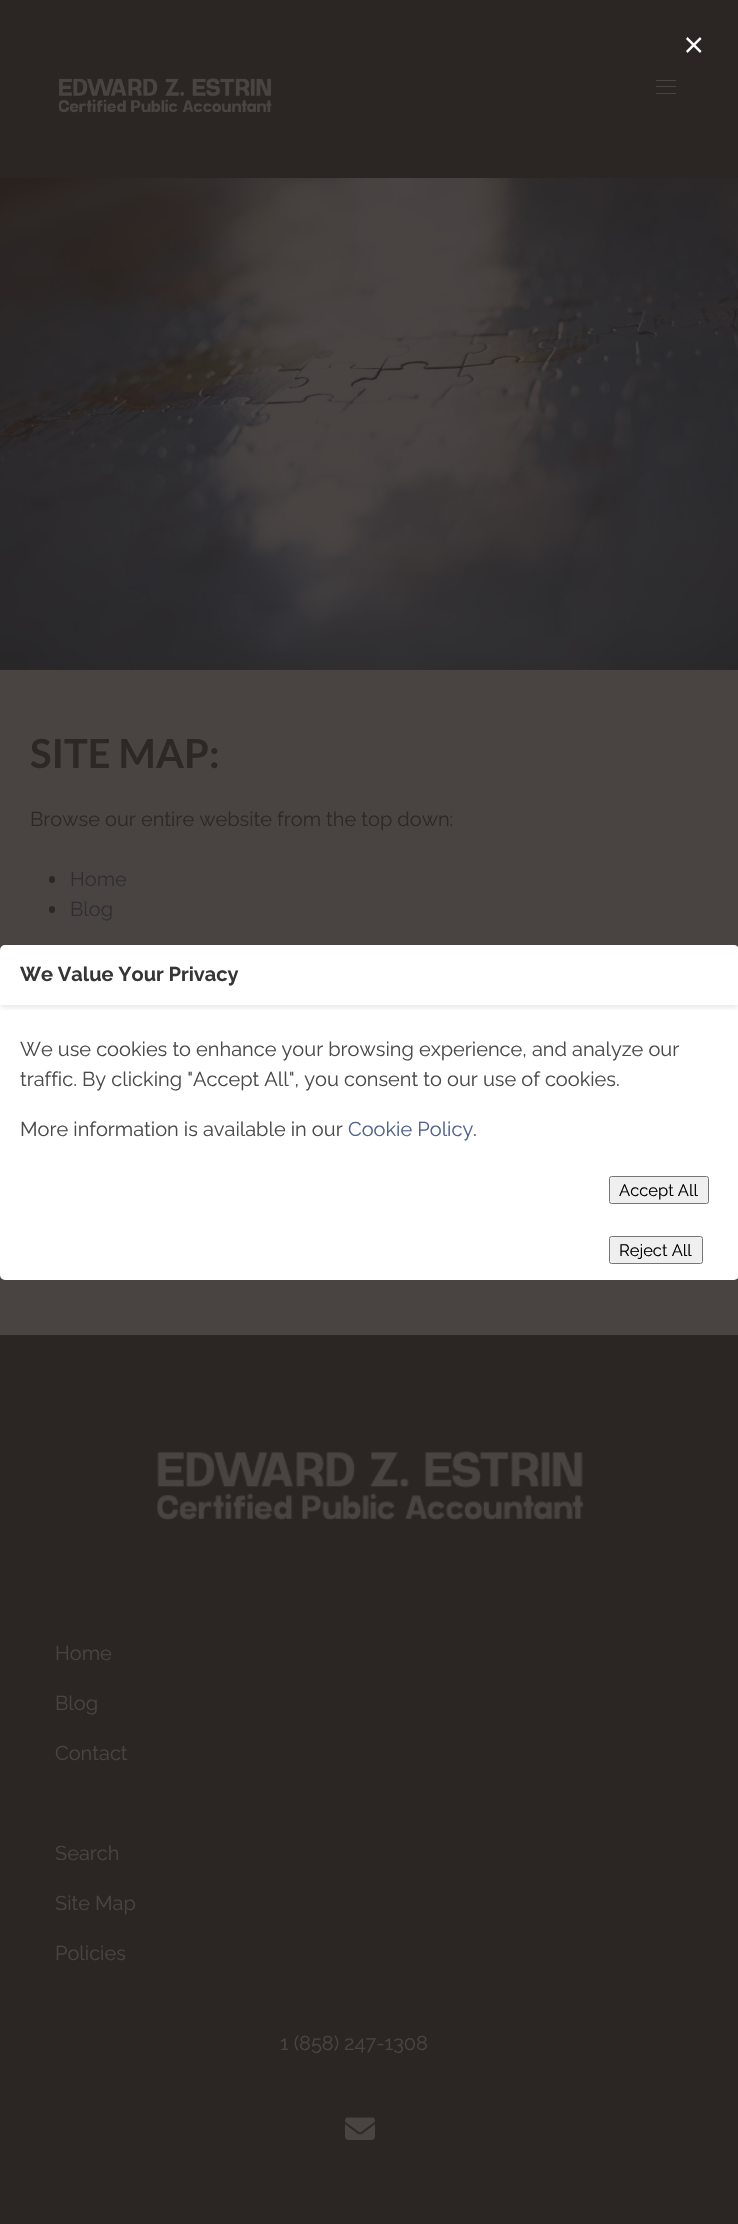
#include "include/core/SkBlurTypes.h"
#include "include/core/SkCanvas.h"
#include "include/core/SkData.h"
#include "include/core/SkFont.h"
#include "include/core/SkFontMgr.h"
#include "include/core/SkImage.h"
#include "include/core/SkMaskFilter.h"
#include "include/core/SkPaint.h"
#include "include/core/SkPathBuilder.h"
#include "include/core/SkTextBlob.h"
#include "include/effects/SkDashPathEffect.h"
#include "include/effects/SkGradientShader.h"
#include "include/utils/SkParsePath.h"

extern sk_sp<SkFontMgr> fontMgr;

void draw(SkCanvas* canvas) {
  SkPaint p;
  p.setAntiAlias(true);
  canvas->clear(SkColorSetRGB(43, 37, 35));
  canvas->drawImageRect(SkImages::DeferredFromEncodedData(SkData::MakeFromFileName("images/1.png")), SkRect::MakeLTRB(58, 78, 272, 113), SkSamplingOptions());
  p.setColor(SkColorSetRGB(73, 68, 66));
  canvas->drawRect(SkRect::MakeLTRB(656, 80, 676, 81), p);
  canvas->drawRect(SkRect::MakeLTRB(656, 86, 676, 87), p);
  canvas->drawRect(SkRect::MakeLTRB(656, 93, 676, 94), p);
  canvas->drawRect(SkRect::MakeLTRB(0, 670, 738, 1335), p);
  canvas->drawImageRect(SkImages::DeferredFromEncodedData(SkData::MakeFromFileName("images/2.png")), SkRect::MakeLTRB(0, 178, 738, 670), SkSamplingOptions());
  p.setColor(SkColorSetRGB(44, 39, 37));
  canvas->drawRoundRect(SkRect::MakeLTRB(49, 876, 55, 883), 3, 3, p);
  canvas->drawRoundRect(SkRect::MakeLTRB(49, 906, 55, 913), 3, 3, p);
  p.setColor(SK_ColorWHITE);
  canvas->drawPath(SkPathBuilder().moveTo(687.5f, 37).lineTo(701.5f, 51).lineTo(700, 53).lineTo(686, 39).close().detach(), p);
  canvas->drawPath(SkPathBuilder().moveTo(700, 37).lineTo(701.5f, 39).lineTo(687.5f, 53).lineTo(686, 51).close().detach(), p);
  canvas->drawRoundRect(SkRect::MakeLTRB(0, 945, 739, 1280), 5, 5, p);
  canvas->save();
  canvas->clipRect(SkRect::MakeLTRB(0, 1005, 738, 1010));
  p.setColor(SkColorSetARGB(26, 43, 37, 35));
  p.setMaskFilter(SkMaskFilter::MakeBlur(kNormal_SkBlurStyle, 2.5f));
  canvas->drawRoundRect(SkRect::MakeLTRB(0, 948, 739, 1008), 5, 5, p);
  p.setMaskFilter(nullptr);
  canvas->restore();
  p.setColor(SkColorSetRGB(239, 239, 239));
  canvas->drawRoundRect(SkRect::MakeLTRB(609.5f, 1176.5f, 708.5f, 1203.5f), 2, 2, p);
  p.setStyle(SkPaint::kStroke_Style);
  p.setStrokeWidth(1);
  p.setColor(SkColorSetRGB(118, 118, 118));
  canvas->drawRoundRect(SkRect::MakeLTRB(609.5f, 1176.5f, 708.5f, 1203.5f), 2, 2, p);
  p.setStyle(SkPaint::kFill_Style);
  p.setColor(SkColorSetRGB(239, 239, 239));
  canvas->drawRoundRect(SkRect::MakeLTRB(609.5f, 1236.5f, 702.5f, 1263.5f), 2, 2, p);
  p.setStyle(SkPaint::kStroke_Style);
  p.setColor(SkColorSetRGB(118, 118, 118));
  canvas->drawRoundRect(SkRect::MakeLTRB(609.5f, 1236.5f, 702.5f, 1263.5f), 2, 2, p);
  canvas->drawImageRect(SkImages::DeferredFromEncodedData(SkData::MakeFromFileName("images/3.png")), SkRect::MakeLTRB(156, 1451, 584, 1521), SkSamplingOptions());
  canvas->drawImageRect(SkImages::DeferredFromEncodedData(SkData::MakeFromFileName("images/4.png")), SkRect::MakeLTRB(345, 2117, 375, 2140), SkSamplingOptions());
  SkFont font1(fontMgr->matchFamilyStyle("Lato", SkFontStyle::Bold()), 40);
  font1.setSubpixel(true);
  p.setStyle(SkPaint::kFill_Style);
  p.setColor(SkColorSetRGB(45, 39, 38));
  canvas->drawString("SITE MAP:", 30, 768, font1, p);
  SkFont font2(fontMgr->matchFamilyStyle("Raleway", SkFontStyle::Normal()), 20);
  font2.setSubpixel(true);
  canvas->drawString("Browse our entire website from the top down:", 30, 826, font2, p);
  p.setColor(SkColorSetRGB(48, 46, 50));
  canvas->drawString("Home", 70, 886, font2, p);
  canvas->drawString("Blog", 70, 916, font2, p);
  SkFont font3(fontMgr->matchFamilyStyle("Raleway", SkFontStyle::Bold()), 20);
  font3.setSubpixel(true);
  p.setColor(SkColorSetRGB(54, 54, 54));
  canvas->drawString("We Value Your Privacy", 20, 981, font3, p);
  p.setColor(SkColorSetRGB(74, 74, 74));
  canvas->drawString("We use cookies to enhance your browsing experience, and analyze our", 20, 1056, font2, p);
  canvas->drawString("traffic. By clicking \"Accept All\", you consent to our use of cookies.", 20, 1086, font2, p);
  canvas->drawString("More information is available in our", 20, 1136, font2, p);
  p.setColor(SkColorSetRGB(79, 98, 142));
  canvas->drawString("Cookie Policy", 348, 1136, font2, p);
  p.setColor(SkColorSetRGB(74, 74, 74));
  canvas->drawString(".", 473, 1136, font2, p);
  SkFont font4(fontMgr->matchFamilyStyle("Raleway", SkFontStyle::Normal()), 16.5f);
  font4.setSubpixel(true);
  p.setColor(SK_ColorBLACK);
  canvas->drawString("Accept All", 619, 1196, font4, p);
  canvas->drawString("Reject All", 619, 1256, font4, p);
  p.setColor(SkColorSetRGB(73, 68, 66));
  canvas->drawString("Home", 55, 1660, font2, p);
  canvas->drawString("Blog", 55, 1710, font2, p);
  canvas->drawString("Contact", 55, 1760, font2, p);
  canvas->drawString("Search", 55, 1860, font2, p);
  canvas->drawString("Site Map", 55, 1910, font2, p);
  canvas->drawString("Policies", 55, 1960, font2, p);
  canvas->drawString("1 (858) 247-1308", 280, 2050, font2, p);
}
